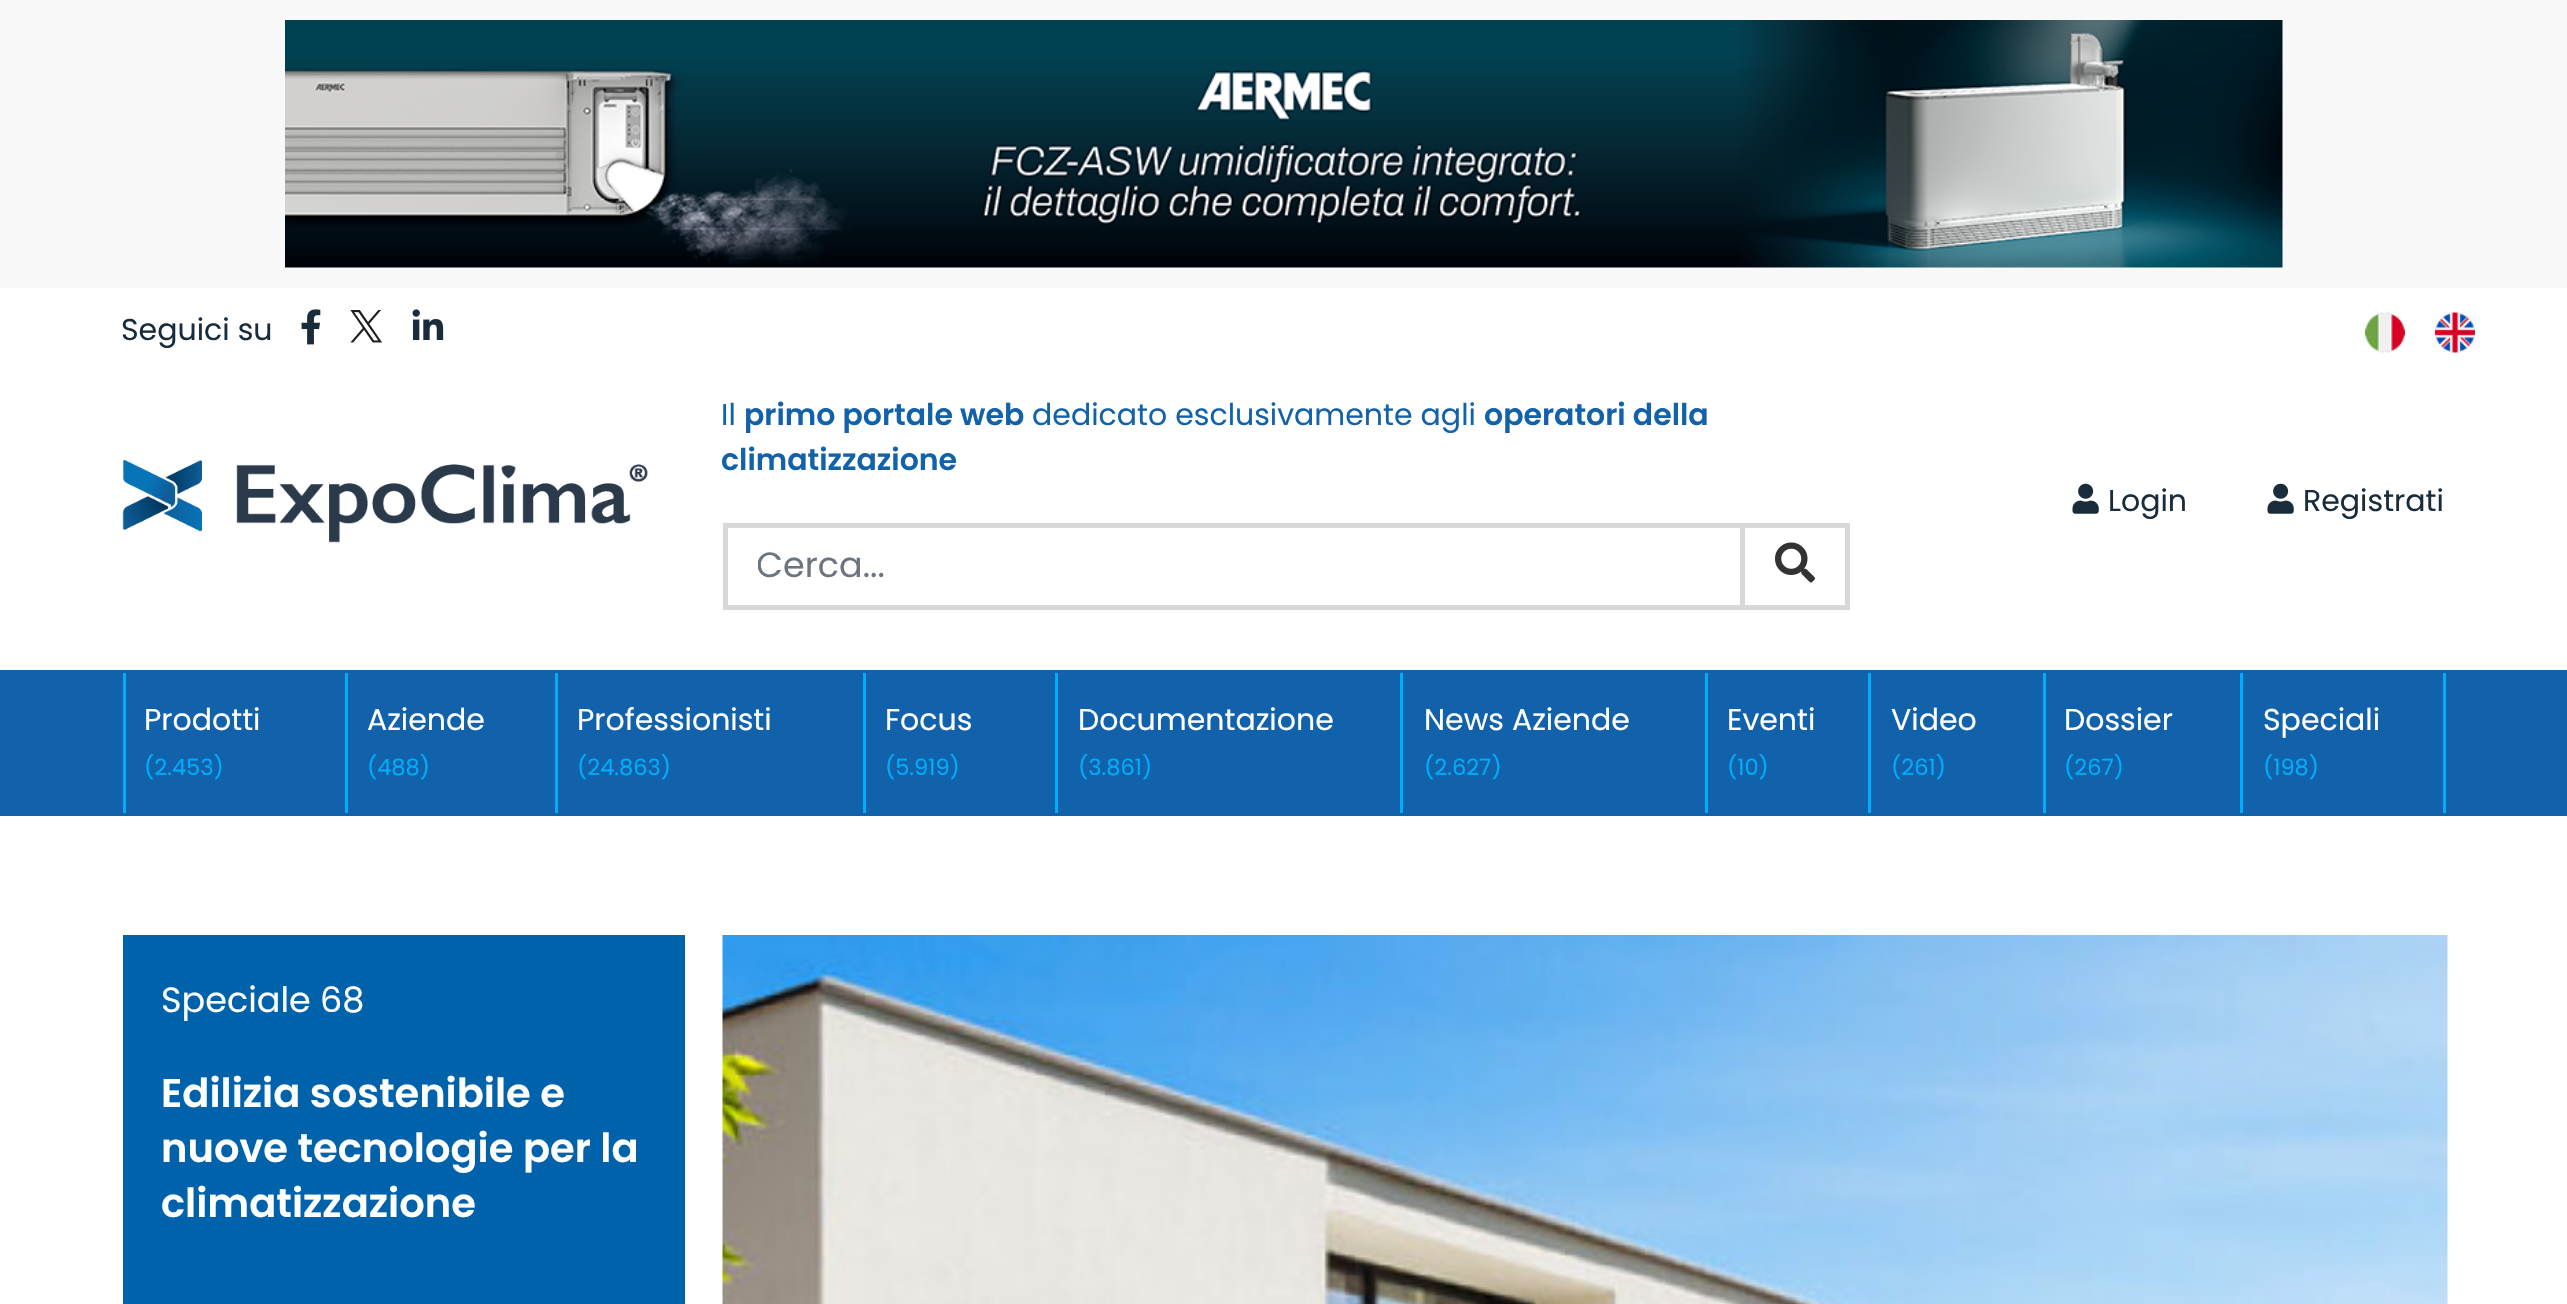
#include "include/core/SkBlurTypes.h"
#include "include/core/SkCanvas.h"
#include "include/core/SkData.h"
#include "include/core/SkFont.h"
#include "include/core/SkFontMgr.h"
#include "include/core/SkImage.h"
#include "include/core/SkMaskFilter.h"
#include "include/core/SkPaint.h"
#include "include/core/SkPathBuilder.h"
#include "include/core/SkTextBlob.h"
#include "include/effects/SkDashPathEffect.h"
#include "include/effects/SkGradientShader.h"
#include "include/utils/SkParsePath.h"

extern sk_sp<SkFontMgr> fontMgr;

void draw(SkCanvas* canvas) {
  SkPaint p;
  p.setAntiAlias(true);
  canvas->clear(SK_ColorWHITE);
  p.setColor(SkColorSetRGB(248, 248, 248));
  canvas->drawRect(SkRect::MakeLTRB(0, 0, 2567, 288), p);
  canvas->drawImageRect(SkImages::DeferredFromEncodedData(SkData::MakeFromFileName("images/1.png")), SkRect::MakeLTRB(285, 20, 2283, 268), SkSamplingOptions());
  canvas->drawImageRect(SkImages::DeferredFromEncodedData(SkData::MakeFromFileName("images/2.png")), SkRect::MakeLTRB(301, 309, 321, 345), SkSamplingOptions());
  canvas->drawImageRect(SkImages::DeferredFromEncodedData(SkData::MakeFromFileName("images/3.png")), SkRect::MakeLTRB(350, 310, 382, 343), SkSamplingOptions());
  canvas->drawImageRect(SkImages::DeferredFromEncodedData(SkData::MakeFromFileName("images/4.png")), SkRect::MakeLTRB(412, 309, 444, 340), SkSamplingOptions());
  canvas->drawImageRect(SkImages::DeferredFromEncodedData(SkData::MakeFromFileName("images/5.png")), SkRect::MakeLTRB(2365, 312, 2405, 353), SkSamplingOptions());
  canvas->drawImageRect(SkImages::DeferredFromEncodedData(SkData::MakeFromFileName("images/6.png")), SkRect::MakeLTRB(2435, 312, 2475, 353), SkSamplingOptions());
  canvas->drawImageRect(SkImages::DeferredFromEncodedData(SkData::MakeFromFileName("images/7.png")), SkRect::MakeLTRB(122, 460, 648, 543), SkSamplingOptions());
  p.setStyle(SkPaint::kStroke_Style);
  p.setStrokeWidth(5);
  p.setColor(SkColorSetRGB(216, 216, 216));
  canvas->drawRect(SkRect::MakeLTRB(725.5f, 525.5f, 1742.5f, 607.5f), p);
  p.setStyle(SkPaint::kFill_Style);
  canvas->drawRect(SkRect::MakeLTRB(1745, 523, 1850, 528), p);
  canvas->drawRect(SkRect::MakeLTRB(1845, 523, 1850, 610), p);
  canvas->drawRect(SkRect::MakeLTRB(1745, 605, 1850, 610), p);
  canvas->drawImageRect(SkImages::DeferredFromEncodedData(SkData::MakeFromFileName("images/8.png")), SkRect::MakeLTRB(1775, 542, 1815, 583), SkSamplingOptions());
  canvas->drawImageRect(SkImages::DeferredFromEncodedData(SkData::MakeFromFileName("images/9.png")), SkRect::MakeLTRB(2072, 483, 2099, 514), SkSamplingOptions());
  canvas->drawImageRect(SkImages::DeferredFromEncodedData(SkData::MakeFromFileName("images/9.png")), SkRect::MakeLTRB(2267, 483, 2294, 514), SkSamplingOptions());
  p.setColor(SkColorSetRGB(17, 98, 171));
  canvas->drawRect(SkRect::MakeLTRB(0, 670, 2567, 816), p);
  p.setColor(SkColorSetRGB(0, 173, 250));
  canvas->drawRect(SkRect::MakeLTRB(345, 673, 348, 813), p);
  canvas->drawRect(SkRect::MakeLTRB(123, 673, 126, 813), p);
  canvas->drawRect(SkRect::MakeLTRB(555, 673, 558, 813), p);
  canvas->drawRect(SkRect::MakeLTRB(863, 673, 866, 813), p);
  canvas->drawRect(SkRect::MakeLTRB(1055, 673, 1058, 813), p);
  canvas->drawRect(SkRect::MakeLTRB(1400, 673, 1403, 813), p);
  canvas->drawRect(SkRect::MakeLTRB(1705, 673, 1708, 813), p);
  canvas->drawRect(SkRect::MakeLTRB(1868, 673, 1871, 813), p);
  canvas->drawRect(SkRect::MakeLTRB(2043, 673, 2046, 813), p);
  canvas->drawRect(SkRect::MakeLTRB(2240, 673, 2243, 813), p);
  canvas->drawRect(SkRect::MakeLTRB(2443, 673, 2446, 813), p);
  p.setColor(SkColorSetRGB(0, 98, 171));
  canvas->drawRect(SkRect::MakeLTRB(123, 935, 685, 1304), p);
  canvas->drawImageRect(SkImages::DeferredFromEncodedData(SkData::MakeFromFileName("images/10.png")), SkRect::MakeLTRB(722, 935, 2448, 1304), SkSamplingOptions());
  SkFont font1(fontMgr->matchFamilyStyle("Poppins", SkFontStyle::Normal()), 30);
  font1.setSubpixel(true);
  p.setColor(SkColorSetRGB(24, 44, 60));
  canvas->drawString("Seguici su", 121, 340, font1, p);
  p.setColor(SkColorSetRGB(17, 98, 171));
  canvas->drawString("Il", 721, 425, font1, p);
  SkFont font2(fontMgr->matchFamilyStyle("Poppins", SkFontStyle(600, SkFontStyle::kNormal_Width, SkFontStyle::kUpright_Slant)), 30);
  font2.setSubpixel(true);
  canvas->drawString("primo portale web", 744, 425, font2, p);
  canvas->drawString("dedicato esclusivamente agli", 1032, 425, font1, p);
  canvas->drawString("operatori della", 1484, 425, font2, p);
  canvas->drawString("climatizzazione", 721, 470, font2, p);
  canvas->save();
  canvas->clipRect(SkRect::MakeLTRB(758, 540, 1710, 593));
  SkFont font3(fontMgr->matchFamilyStyle("Poppins", SkFontStyle::Normal()), 35);
  font3.setSubpixel(true);
  p.setColor(SkColorSetRGB(108, 117, 125));
  canvas->drawString("Cerca...", 756, 577, font3, p);
  canvas->restore();
  p.setColor(SkColorSetRGB(24, 44, 60));
  canvas->drawString("Login", 2108, 511, font1, p);
  canvas->drawString("Registrati", 2303, 511, font1, p);
  p.setColor(SK_ColorWHITE);
  canvas->drawString("Prodotti", 144, 730, font1, p);
  SkFont font4(fontMgr->matchFamilyStyle("Poppins", SkFontStyle::Normal()), 22.5f);
  font4.setSubpixel(true);
  p.setColor(SkColorSetRGB(0, 173, 250));
  canvas->drawString("(2.453)", 144, 775, font4, p);
  p.setColor(SK_ColorWHITE);
  canvas->drawString("Aziende", 367, 730, font1, p);
  p.setColor(SkColorSetRGB(0, 173, 250));
  canvas->drawString("(488)", 367, 775, font4, p);
  p.setColor(SK_ColorWHITE);
  canvas->drawString("Professionisti", 577, 730, font1, p);
  p.setColor(SkColorSetRGB(0, 173, 250));
  canvas->drawString("(24.863)", 577, 775, font4, p);
  p.setColor(SK_ColorWHITE);
  canvas->drawString("Focus", 885, 730, font1, p);
  p.setColor(SkColorSetRGB(0, 173, 250));
  canvas->drawString("(5.919)", 885, 775, font4, p);
  p.setColor(SK_ColorWHITE);
  canvas->drawString("Documentazione", 1078, 730, font1, p);
  p.setColor(SkColorSetRGB(0, 173, 250));
  canvas->drawString("(3.861)", 1078, 775, font4, p);
  p.setColor(SK_ColorWHITE);
  canvas->drawString("News Aziende", 1424, 730, font1, p);
  p.setColor(SkColorSetRGB(0, 173, 250));
  canvas->drawString("(2.627)", 1424, 775, font4, p);
  p.setColor(SK_ColorWHITE);
  canvas->drawString("Eventi", 1727, 730, font1, p);
  p.setColor(SkColorSetRGB(0, 173, 250));
  canvas->drawString("(10)", 1727, 775, font4, p);
  p.setColor(SK_ColorWHITE);
  canvas->drawString("Video", 1891, 730, font1, p);
  p.setColor(SkColorSetRGB(0, 173, 250));
  canvas->drawString("(261)", 1891, 775, font4, p);
  p.setColor(SK_ColorWHITE);
  canvas->drawString("Dossier", 2064, 730, font1, p);
  p.setColor(SkColorSetRGB(0, 173, 250));
  canvas->drawString("(267)", 2064, 775, font4, p);
  p.setColor(SK_ColorWHITE);
  canvas->drawString("Speciali", 2263, 730, font1, p);
  p.setColor(SkColorSetRGB(0, 173, 250));
  canvas->drawString("(198)", 2263, 775, font4, p);
  p.setColor(SK_ColorWHITE);
  canvas->drawString("Speciale 68", 161, 1012, font3, p);
  SkFont font5(fontMgr->matchFamilyStyle("Poppins", SkFontStyle(600, SkFontStyle::kNormal_Width, SkFontStyle::kUpright_Slant)), 40);
  font5.setSubpixel(true);
  canvas->drawString("Edilizia sostenibile e", 161, 1107, font5, p);
  canvas->drawString("nuove tecnologie per la", 161, 1162, font5, p);
  canvas->drawString("climatizzazione", 161, 1217, font5, p);
}
